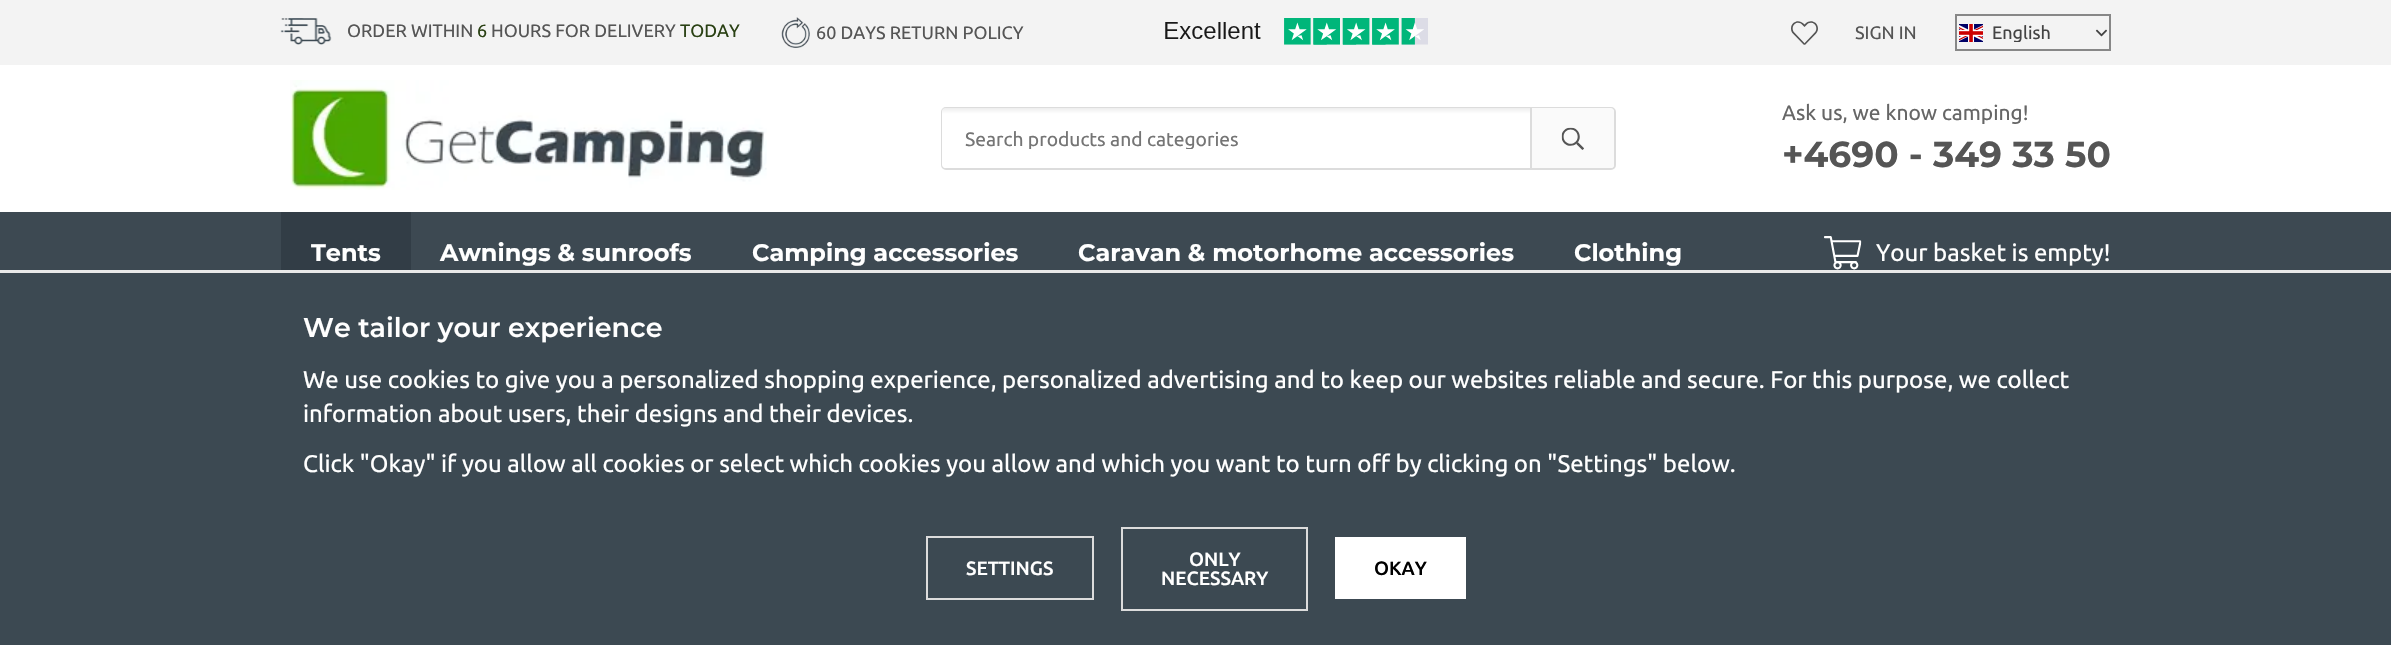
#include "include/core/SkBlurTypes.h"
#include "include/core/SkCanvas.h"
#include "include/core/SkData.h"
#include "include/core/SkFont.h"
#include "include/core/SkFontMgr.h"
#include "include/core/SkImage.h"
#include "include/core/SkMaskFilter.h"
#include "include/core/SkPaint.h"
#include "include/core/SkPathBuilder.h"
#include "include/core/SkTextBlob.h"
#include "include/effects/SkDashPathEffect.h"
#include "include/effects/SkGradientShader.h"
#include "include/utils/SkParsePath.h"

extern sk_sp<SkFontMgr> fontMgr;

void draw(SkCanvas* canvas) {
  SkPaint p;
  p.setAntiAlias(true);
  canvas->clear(SK_ColorWHITE);
  p.setColor(SkColorSetRGB(243, 243, 243));
  canvas->drawRect(SkRect::MakeLTRB(0, 0, 2391, 65), p);
  canvas->drawImageRect(SkImages::DeferredFromEncodedData(SkData::MakeFromFileName("images/1.png")), SkRect::MakeLTRB(280, 18, 332, 45), SkSamplingOptions());
  canvas->drawImageRect(SkImages::DeferredFromEncodedData(SkData::MakeFromFileName("images/2.png")), SkRect::MakeLTRB(781, 17, 810, 48), SkSamplingOptions());
  canvas->drawImageRect(SkImages::DeferredFromEncodedData(SkData::MakeFromFileName("images/3.png")), SkRect::MakeLTRB(1165, 18, 1428, 45), SkSamplingOptions());
  canvas->drawImageRect(SkImages::DeferredFromEncodedData(SkData::MakeFromFileName("images/4.png")), SkRect::MakeLTRB(1791, 21, 1818, 45), SkSamplingOptions());
  p.setStyle(SkPaint::kStroke_Style);
  p.setStrokeWidth(2);
  p.setColor(SkColorSetRGB(135, 135, 135));
  canvas->drawRect(SkRect::MakeLTRB(1956, 15, 2110, 50), p);
  canvas->drawImageRect(SkImages::DeferredFromEncodedData(SkData::MakeFromFileName("images/5.png")), SkRect::MakeLTRB(1959, 24, 1983, 42), SkSamplingOptions());
  canvas->drawImageRect(SkImages::DeferredFromEncodedData(SkData::MakeFromFileName("images/6.png")), SkRect::MakeLTRB(2095, 29, 2107, 37), SkSamplingOptions());
  canvas->drawImageRect(SkImages::DeferredFromEncodedData(SkData::MakeFromFileName("images/7.png")), SkRect::MakeLTRB(290, 80, 767, 190), SkSamplingOptions());
  p.setColor(SkColorSetRGB(220, 220, 220));
  canvas->drawRoundRect(SkRect::MakeLTRB(942, 108, 1615, 169), 4, 4, p);
  p.setStyle(SkPaint::kFill_Style);
  {
    const SkColor colors[] = {SK_ColorWHITE, SkColorSetRGB(238, 238, 238)};
    const float stops[] = {0.9f, 1};
    const SkPoint ends[] = {{1236, 168}, {1236, 108}};
    p.setShader(SkGradientShader::MakeLinear(ends, colors, stops, 2, SkTileMode::kClamp));
    p.setAlpha(255);
  }
  canvas->drawPath(SkPathBuilder().moveTo(945, 108).lineTo(1530, 108).lineTo(1530, 168).lineTo(945, 168).cubicTo(943.5f, 168, 942, 166.5f, 942, 165).lineTo(942, 111).cubicTo(942, 109.5f, 943.5f, 108, 945, 108).close().detach(), p);
  p.setShader(nullptr);
  p.setColor(SkColorSetRGB(250, 250, 250));
  canvas->drawPath(SkPathBuilder().moveTo(1530, 108).lineTo(1611, 108).cubicTo(1612.5f, 108, 1614, 109.5f, 1614, 111).lineTo(1614, 165).cubicTo(1614, 166.5f, 1612.5f, 168, 1611, 168).lineTo(1530, 168).close().detach(), p);
  p.setColor(SkColorSetRGB(220, 220, 220));
  canvas->drawRect(SkRect::MakeLTRB(1530, 108, 1532, 168), p);
  canvas->drawImageRect(SkImages::DeferredFromEncodedData(SkData::MakeFromFileName("images/8.png")), SkRect::MakeLTRB(1561, 127, 1584, 150), SkSamplingOptions());
  p.setColor(SkColorSetRGB(61, 73, 82));
  canvas->drawRect(SkRect::MakeLTRB(0, 212, 2391, 270), p);
  p.setColor(SkColorSetRGB(50, 61, 70));
  canvas->drawRect(SkRect::MakeLTRB(281, 212, 411, 270), p);
  canvas->drawImageRect(SkImages::DeferredFromEncodedData(SkData::MakeFromFileName("images/9.png")), SkRect::MakeLTRB(1824, 236, 1862, 270), SkSamplingOptions());
  p.setColor(SkColorSetRGB(60, 73, 82));
  canvas->drawRect(SkRect::MakeLTRB(0, 273, 2391, 645), p);
  p.setColor(SkColorSetRGB(233, 233, 233));
  canvas->drawRect(SkRect::MakeLTRB(0, 270, 2391, 273), p);
  p.setStyle(SkPaint::kStroke_Style);
  p.setColor(SkColorSetRGB(220, 220, 220));
  canvas->drawRect(SkRect::MakeLTRB(927, 537, 1093, 599), p);
  canvas->drawRect(SkRect::MakeLTRB(1122, 528, 1307, 610), p);
  p.setStyle(SkPaint::kFill_Style);
  p.setColor(SK_ColorWHITE);
  canvas->drawRect(SkRect::MakeLTRB(1335, 537, 1466, 599), p);
  SkFont font1(fontMgr->matchFamilyStyle("Ubuntu", SkFontStyle::Normal()), 18);
  font1.setSubpixel(true);
  p.setColor(SkColorSetRGB(85, 85, 85));
  canvas->drawString("ORDER WITHIN", 347, 37, font1, p);
  p.setColor(SkColorSetRGB(42, 65, 20));
  canvas->drawString("6", 477, 37, font1, p);
  p.setColor(SkColorSetRGB(85, 85, 85));
  canvas->drawString("HOURS FOR DELIVERY", 491, 37, font1, p);
  p.setColor(SkColorSetRGB(42, 65, 20));
  canvas->drawString("TODAY", 680, 37, font1, p);
  p.setColor(SkColorSetRGB(85, 85, 85));
  canvas->drawString("60 DAYS RETURN POLICY", 816, 39, font1, p);
  canvas->drawString("SIGN IN", 1855, 39, font1, p);
  canvas->save();
  canvas->clipRect(SkRect::MakeLTRB(1992, 23, 2087, 42));
  p.setColor(SkColorSetRGB(68, 68, 68));
  canvas->drawString("English", 1992, 39, font1, p);
  canvas->restore();
  canvas->save();
  canvas->clipRect(SkRect::MakeLTRB(965, 128, 1509, 149));
  SkFont font2(fontMgr->matchFamilyStyle("Ubuntu", SkFontStyle::Normal()), 19.25f);
  font2.setSubpixel(true);
  p.setColor(SkColorSetRGB(117, 117, 117));
  canvas->drawString("Search products and categories", 965, 146, font2, p);
  canvas->restore();
  SkFont font3(fontMgr->matchFamilyStyle("Ubuntu", SkFontStyle::Normal()), 21);
  font3.setSubpixel(true);
  p.setColor(SkColorSetRGB(102, 102, 102));
  canvas->drawString("Ask us, we know camping!", 1782, 120, font3, p);
  SkFont font4(fontMgr->matchFamilyStyle("Montserrat", SkFontStyle::Bold()), 36);
  font4.setSubpixel(true);
  p.setColor(SkColorSetRGB(85, 85, 85));
  canvas->drawString("+4690 - 349 33 50", 1782, 167, font4, p);
  SkFont font5(fontMgr->matchFamilyStyle("Montserrat", SkFontStyle::Bold()), 24);
  font5.setSubpixel(true);
  p.setColor(SK_ColorWHITE);
  canvas->drawString("Tents", 311, 261, font5, p);
  canvas->drawString("Awnings & sunroofs", 440, 261, font5, p);
  canvas->drawString("Camping accessories", 752, 261, font5, p);
  canvas->drawString("Caravan & motorhome accessories", 1078, 261, font5, p);
  canvas->drawString("Clothing", 1574, 261, font5, p);
  SkFont font6(fontMgr->matchFamilyStyle("Ubuntu", SkFontStyle::Normal()), 24);
  font6.setSubpixel(true);
  canvas->drawString("Your basket is empty!", 1876, 261, font6, p);
  SkFont font7(fontMgr->matchFamilyStyle("Montserrat", SkFontStyle(600, SkFontStyle::kNormal_Width, SkFontStyle::kUpright_Slant)), 27);
  font7.setSubpixel(true);
  canvas->drawString("We tailor your experience", 303, 337, font7, p);
  canvas->drawString("We use cookies to give you a personalized shopping experience, personalized advertising and to keep our websites reliable and secure. For this purpose, we collect", 303, 388, font6, p);
  canvas->drawString("information about users, their designs and their devices.", 303, 422, font6, p);
  canvas->drawString("Click \"Okay\" if you allow all cookies or select which cookies you allow and which you want to turn off by clicking on \"Settings\" below.", 303, 472, font6, p);
  SkFont font8(fontMgr->matchFamilyStyle("Ubuntu", SkFontStyle(500, SkFontStyle::kNormal_Width, SkFontStyle::kUpright_Slant)), 19.25f);
  font8.setSubpixel(true);
  canvas->drawString("SETTINGS", 966, 575, font8, p);
  canvas->drawString("ONLY", 1189, 566, font8, p);
  canvas->drawString("NECESSARY", 1161, 585, font8, p);
  p.setColor(SK_ColorBLACK);
  canvas->drawString("OKAY", 1374, 575, font8, p);
}
